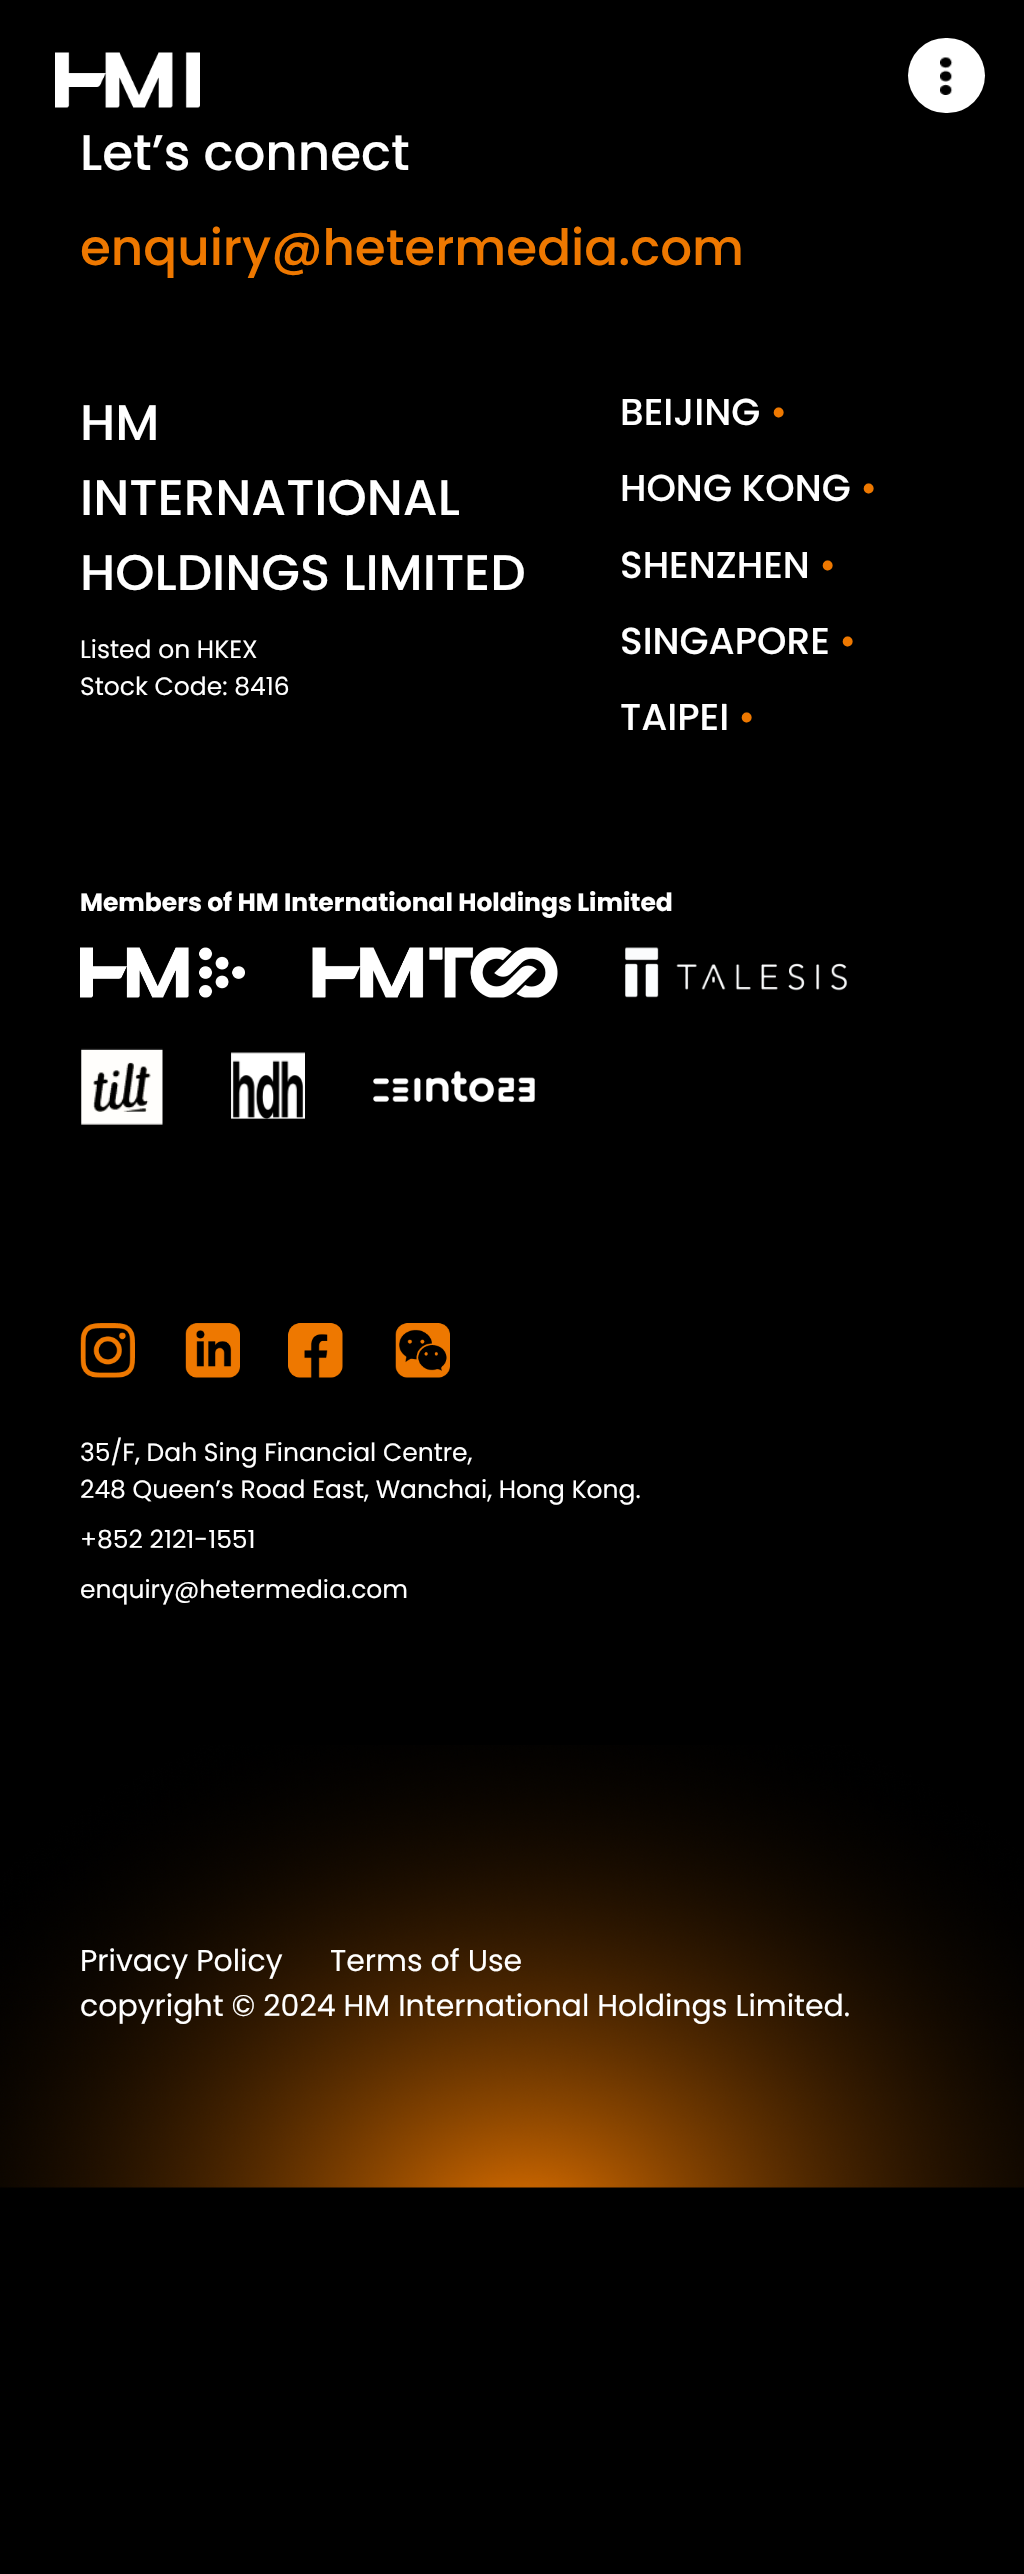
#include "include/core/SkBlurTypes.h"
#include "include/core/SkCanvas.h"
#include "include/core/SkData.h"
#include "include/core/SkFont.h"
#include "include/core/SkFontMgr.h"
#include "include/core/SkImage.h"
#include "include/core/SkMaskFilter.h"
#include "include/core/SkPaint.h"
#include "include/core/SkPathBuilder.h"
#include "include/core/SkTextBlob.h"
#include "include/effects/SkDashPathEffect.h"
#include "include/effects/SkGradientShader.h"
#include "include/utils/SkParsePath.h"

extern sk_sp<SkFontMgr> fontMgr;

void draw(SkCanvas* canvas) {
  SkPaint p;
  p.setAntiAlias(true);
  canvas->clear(SK_ColorBLACK);
  canvas->drawImageRect(SkImages::DeferredFromEncodedData(SkData::MakeFromFileName("images/1.png")), SkRect::MakeLTRB(55, 52, 200, 108), SkSamplingOptions());
  p.setColor(SK_ColorWHITE);
  canvas->drawRoundRect(SkRect::MakeLTRB(908, 38, 985, 113), 37.5f, 37.5f, p);
  canvas->drawImageRect(SkImages::DeferredFromEncodedData(SkData::MakeFromFileName("images/2.png")), SkRect::MakeLTRB(940, 57, 953, 95), SkSamplingOptions());
  canvas->drawImageRect(SkImages::DeferredFromEncodedData(SkData::MakeFromFileName("images/3.png")), SkRect::MakeLTRB(80, 947, 245, 998), SkSamplingOptions());
  canvas->drawImageRect(SkImages::DeferredFromEncodedData(SkData::MakeFromFileName("images/4.png")), SkRect::MakeLTRB(312, 947, 558, 998), SkSamplingOptions());
  canvas->drawImageRect(SkImages::DeferredFromEncodedData(SkData::MakeFromFileName("images/5.png")), SkRect::MakeLTRB(625, 947, 848, 998), SkSamplingOptions());
  canvas->drawImageRect(SkImages::DeferredFromEncodedData(SkData::MakeFromFileName("images/6.png")), SkRect::MakeLTRB(81, 1048, 163, 1125), SkSamplingOptions());
  canvas->drawImageRect(SkImages::DeferredFromEncodedData(SkData::MakeFromFileName("images/7.png")), SkRect::MakeLTRB(231, 1052, 305, 1119), SkSamplingOptions());
  canvas->drawImageRect(SkImages::DeferredFromEncodedData(SkData::MakeFromFileName("images/8.png")), SkRect::MakeLTRB(373, 1070, 535, 1103), SkSamplingOptions());
  canvas->drawImageRect(SkImages::DeferredFromEncodedData(SkData::MakeFromFileName("images/9.png")), SkRect::MakeLTRB(80, 1323, 135, 1378), SkSamplingOptions());
  canvas->drawImageRect(SkImages::DeferredFromEncodedData(SkData::MakeFromFileName("images/10.png")), SkRect::MakeLTRB(185, 1323, 240, 1378), SkSamplingOptions());
  canvas->drawImageRect(SkImages::DeferredFromEncodedData(SkData::MakeFromFileName("images/11.png")), SkRect::MakeLTRB(288, 1323, 343, 1378), SkSamplingOptions());
  canvas->drawImageRect(SkImages::DeferredFromEncodedData(SkData::MakeFromFileName("images/12.png")), SkRect::MakeLTRB(395, 1323, 450, 1378), SkSamplingOptions());
  canvas->drawImageRect(SkImages::DeferredFromEncodedData(SkData::MakeFromFileName("images/13.png")), SkRect::MakeLTRB(0, 1745, 1024, 2188), SkSamplingOptions());
  SkFont font1(fontMgr->matchFamilyStyle("Poppins", SkFontStyle(500, SkFontStyle::kNormal_Width, SkFontStyle::kUpright_Slant)), 50);
  font1.setSubpixel(true);
  canvas->drawString("Let’s connect", 80, 170, font1, p);
  p.setColor(SkColorSetRGB(238, 120, 0));
  canvas->drawString("enquiry@hetermedia.com", 80, 265, font1, p);
  p.setColor(SK_ColorWHITE);
  canvas->drawString("HM", 80, 440, font1, p);
  canvas->drawString("INTERNATIONAL", 80, 515, font1, p);
  canvas->drawString("HOLDINGS LIMITED", 80, 590, font1, p);
  SkFont font2(fontMgr->matchFamilyStyle("Poppins", SkFontStyle::Normal()), 25);
  font2.setSubpixel(true);
  canvas->drawString("Listed on HKEX", 80, 658, font2, p);
  canvas->drawString("Stock Code: 8416", 80, 695, font2, p);
  SkFont font3(fontMgr->matchFamilyStyle("Poppins", SkFontStyle(500, SkFontStyle::kNormal_Width, SkFontStyle::kUpright_Slant)), 37.5f);
  font3.setSubpixel(true);
  canvas->drawString("BEIJING", 620, 425, font3, p);
  p.setColor(SkColorSetRGB(238, 120, 0));
  canvas->drawString("•", 770, 425, font3, p);
  p.setColor(SK_ColorWHITE);
  canvas->drawString("HONG KONG", 620, 501, font3, p);
  p.setColor(SkColorSetRGB(238, 120, 0));
  canvas->drawString("•", 860, 501, font3, p);
  p.setColor(SK_ColorWHITE);
  canvas->drawString("SHENZHEN", 620, 578, font3, p);
  p.setColor(SkColorSetRGB(238, 120, 0));
  canvas->drawString("•", 819, 578, font3, p);
  p.setColor(SK_ColorWHITE);
  canvas->drawString("SINGAPORE", 620, 654, font3, p);
  p.setColor(SkColorSetRGB(238, 120, 0));
  canvas->drawString("•", 839, 654, font3, p);
  p.setColor(SK_ColorWHITE);
  canvas->drawString("TAIPEI", 620, 730, font3, p);
  p.setColor(SkColorSetRGB(238, 120, 0));
  canvas->drawString("•", 738, 730, font3, p);
  SkFont font4(fontMgr->matchFamilyStyle("Poppins", SkFontStyle::Bold()), 25);
  font4.setSubpixel(true);
  p.setColor(SK_ColorWHITE);
  canvas->drawString("Members of HM International Holdings Limited", 80, 911, font4, p);
  canvas->drawString("35/F, Dah Sing Financial Centre,", 80, 1461, font2, p);
  canvas->drawString("248 Queen’s Road East, Wanchai, Hong Kong.", 80, 1498, font2, p);
  canvas->drawString("+852 2121-1551", 80, 1548, font2, p);
  canvas->drawString("enquiry@hetermedia.com", 80, 1598, font2, p);
  SkFont font5(fontMgr->matchFamilyStyle("Poppins", SkFontStyle::Normal()), 30);
  font5.setSubpixel(true);
  canvas->drawString("Privacy Policy", 80, 1971, font5, p);
  canvas->drawString("Terms of Use", 330, 1971, font5, p);
  canvas->drawString("copyright © 2024 HM International Holdings Limited.", 80, 2016, font5, p);
}
